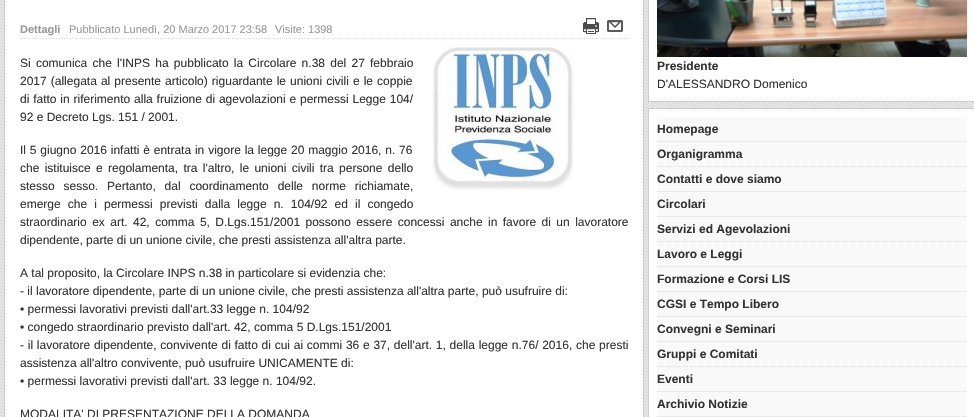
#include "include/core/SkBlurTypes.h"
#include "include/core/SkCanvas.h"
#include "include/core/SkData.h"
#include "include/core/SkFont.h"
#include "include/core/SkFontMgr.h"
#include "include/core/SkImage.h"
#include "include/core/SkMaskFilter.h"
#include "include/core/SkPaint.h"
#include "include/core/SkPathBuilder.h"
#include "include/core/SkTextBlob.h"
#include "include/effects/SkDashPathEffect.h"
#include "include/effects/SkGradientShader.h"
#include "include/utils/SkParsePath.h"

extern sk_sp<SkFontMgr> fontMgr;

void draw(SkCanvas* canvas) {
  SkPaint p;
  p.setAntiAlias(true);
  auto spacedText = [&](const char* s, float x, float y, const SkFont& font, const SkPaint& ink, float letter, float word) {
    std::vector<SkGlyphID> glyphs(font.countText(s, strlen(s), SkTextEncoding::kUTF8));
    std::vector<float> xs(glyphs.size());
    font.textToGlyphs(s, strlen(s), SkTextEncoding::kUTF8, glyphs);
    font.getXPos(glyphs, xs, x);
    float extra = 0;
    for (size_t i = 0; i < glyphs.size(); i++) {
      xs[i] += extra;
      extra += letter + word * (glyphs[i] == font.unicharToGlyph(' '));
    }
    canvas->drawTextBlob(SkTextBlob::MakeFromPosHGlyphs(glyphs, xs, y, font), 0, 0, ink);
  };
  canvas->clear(SK_ColorWHITE);
  canvas->drawImageRect(SkImages::DeferredFromEncodedData(SkData::MakeFromFileName("images/1.png")), SkRect::MakeLTRB(0, 0, 974, 417), SkSamplingOptions());
  p.setColor(SK_ColorWHITE);
  canvas->drawRect(SkRect::MakeLTRB(5, 0, 643, 417), p);
  p.setColor(SkColorSetRGB(204, 204, 204));
  canvas->drawRect(SkRect::MakeLTRB(643, 0, 644, 417), p);
  canvas->drawRect(SkRect::MakeLTRB(4, 0, 5, 417), p);
  p.setStyle(SkPaint::kStroke_Style);
  p.setStrokeWidth(1);
  p.setColor(SkColorSetRGB(221, 221, 221));
  p.setPathEffect(SkDashPathEffect::Make({{1, 1}}, 0));
  canvas->drawPath(SkPathBuilder().moveTo(20, 38.5f).lineTo(628, 38.5f).detach(), p);
  p.setPathEffect(nullptr);
  canvas->drawImageRect(SkImages::DeferredFromEncodedData(SkData::MakeFromFileName("images/2.png")), SkRect::MakeLTRB(583, 18, 599, 34), SkSamplingOptions());
  canvas->drawImageRect(SkImages::DeferredFromEncodedData(SkData::MakeFromFileName("images/3.png")), SkRect::MakeLTRB(607, 20, 623, 32), SkSamplingOptions());
  canvas->drawImageRect(SkImages::DeferredFromEncodedData(SkData::MakeFromFileName("images/4.png")), SkRect::MakeLTRB(432, 44, 574, 190), SkSamplingOptions());
  p.setStyle(SkPaint::kFill_Style);
  p.setColor(SK_ColorWHITE);
  canvas->drawRect(SkRect::MakeLTRB(648.5f, -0.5f, 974.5f, 101.5f), p);
  p.setStyle(SkPaint::kStroke_Style);
  p.setColor(SkColorSetRGB(204, 204, 204));
  canvas->drawRect(SkRect::MakeLTRB(648.5f, -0.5f, 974.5f, 101.5f), p);
  canvas->drawImageRect(SkImages::DeferredFromEncodedData(SkData::MakeFromFileName("images/5.png")), SkRect::MakeLTRB(657, 0, 967, 57), SkSamplingOptions());
  p.setStyle(SkPaint::kFill_Style);
  p.setColor(SK_ColorWHITE);
  canvas->drawRect(SkRect::MakeLTRB(648.5f, 108.5f, 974.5f, 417.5f), p);
  p.setStyle(SkPaint::kStroke_Style);
  p.setColor(SkColorSetRGB(204, 204, 204));
  canvas->drawRect(SkRect::MakeLTRB(648.5f, 108.5f, 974.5f, 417.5f), p);
  p.setStyle(SkPaint::kFill_Style);
  p.setColor(SkColorSetRGB(249, 249, 249));
  canvas->drawRect(SkRect::MakeLTRB(657, 117, 967, 417), p);
  p.setStyle(SkPaint::kStroke_Style);
  p.setColor(SkColorSetRGB(221, 221, 221));
  p.setPathEffect(SkDashPathEffect::Make({{1, 1}}, 0));
  canvas->drawPath(SkPathBuilder().moveTo(657, 141.5f).lineTo(967, 141.5f).detach(), p);
  p.setPathEffect(nullptr);
  p.setPathEffect(SkDashPathEffect::Make({{1, 1}}, 0));
  canvas->drawPath(SkPathBuilder().moveTo(657, 166.5f).lineTo(967, 166.5f).detach(), p);
  p.setPathEffect(nullptr);
  p.setPathEffect(SkDashPathEffect::Make({{1, 1}}, 0));
  canvas->drawPath(SkPathBuilder().moveTo(657, 191.5f).lineTo(967, 191.5f).detach(), p);
  p.setPathEffect(nullptr);
  p.setPathEffect(SkDashPathEffect::Make({{1, 1}}, 0));
  canvas->drawPath(SkPathBuilder().moveTo(657, 216.5f).lineTo(967, 216.5f).detach(), p);
  p.setPathEffect(nullptr);
  p.setPathEffect(SkDashPathEffect::Make({{1, 1}}, 0));
  canvas->drawPath(SkPathBuilder().moveTo(657, 241.5f).lineTo(967, 241.5f).detach(), p);
  p.setPathEffect(nullptr);
  p.setPathEffect(SkDashPathEffect::Make({{1, 1}}, 0));
  canvas->drawPath(SkPathBuilder().moveTo(657, 266.5f).lineTo(967, 266.5f).detach(), p);
  p.setPathEffect(nullptr);
  p.setPathEffect(SkDashPathEffect::Make({{1, 1}}, 0));
  canvas->drawPath(SkPathBuilder().moveTo(657, 291.5f).lineTo(967, 291.5f).detach(), p);
  p.setPathEffect(nullptr);
  p.setPathEffect(SkDashPathEffect::Make({{1, 1}}, 0));
  canvas->drawPath(SkPathBuilder().moveTo(657, 316.5f).lineTo(967, 316.5f).detach(), p);
  p.setPathEffect(nullptr);
  p.setPathEffect(SkDashPathEffect::Make({{1, 1}}, 0));
  canvas->drawPath(SkPathBuilder().moveTo(657, 341.5f).lineTo(967, 341.5f).detach(), p);
  p.setPathEffect(nullptr);
  p.setPathEffect(SkDashPathEffect::Make({{1, 1}}, 0));
  canvas->drawPath(SkPathBuilder().moveTo(657, 366.5f).lineTo(967, 366.5f).detach(), p);
  p.setPathEffect(nullptr);
  p.setPathEffect(SkDashPathEffect::Make({{1, 1}}, 0));
  canvas->drawPath(SkPathBuilder().moveTo(657, 391.5f).lineTo(967, 391.5f).detach(), p);
  p.setPathEffect(nullptr);
  p.setPathEffect(SkDashPathEffect::Make({{1, 1}}, 0));
  canvas->drawPath(SkPathBuilder().moveTo(657, 416.5f).lineTo(967, 416.5f).detach(), p);
  p.setPathEffect(nullptr);
  SkFont font1(fontMgr->matchFamilyStyle("Liberation Sans", SkFontStyle::Bold()), 11);
  font1.setSubpixel(true);
  p.setStyle(SkPaint::kFill_Style);
  p.setColor(SkColorSetRGB(153, 153, 153));
  canvas->drawString("Dettagli", 20, 33, font1, p);
  SkFont font2(fontMgr->matchFamilyStyle("Liberation Sans", SkFontStyle::Normal()), 11);
  font2.setSubpixel(true);
  canvas->drawString("Pubblicato Lunedì, 20 Marzo 2017 23:58", 69, 33, font2, p);
  canvas->drawString("Visite: 1398", 275, 33, font2, p);
  SkFont font3(fontMgr->matchFamilyStyle("Liberation Sans", SkFontStyle::Normal()), 12);
  font3.setSubpixel(true);
  p.setColor(SkColorSetRGB(51, 51, 51));
  spacedText("Si comunica che l'INPS ha pubblicato la Circolare n.38 del 27 febbraio", 20, 67, font3, p, 0, 1.9f);
  spacedText("2017 (allegata al presente articolo) riguardante le unioni civili e le coppie", 20, 85, font3, p, 0, 0.75f);
  spacedText("di fatto in riferimento alla fruizione di agevolazioni e permessi Legge 104/", 20, 103, font3, p, 0, 0.5f);
  canvas->drawString("92 e Decreto Lgs. 151 / 2001.", 20, 121, font3, p);
  spacedText("Il 5 giugno 2016 infatti è entrata in vigore la legge 20 maggio 2016, n. 76", 20, 154, font3, p, 0, 0.5f);
  spacedText("che istituisce e regolamenta, tra l'altro, le unioni civili tra persone dello", 20, 172, font3, p, 0, 2);
  spacedText("stesso sesso. Pertanto, dal coordinamento delle norme richiamate,", 20, 190, font3, p, 0, 5.5f);
  spacedText("emerge che i permessi previsti dalla legge n. 104/92 ed il congedo", 20, 208, font3, p, 0, 3.75f);
  spacedText("straordinario ex art. 42, comma 5, D.Lgs.151/2001 possono essere concessi anche in favore di un lavoratore", 20, 226, font3, p, 0, 2.1f);
  canvas->drawString("dipendente, parte di un unione civile, che presti assistenza all'altra parte.", 20, 244, font3, p);
  canvas->drawString("A tal proposito, la Circolare INPS n.38 in particolare si evidenzia che:", 20, 277, font3, p);
  canvas->drawString("- il lavoratore dipendente, parte di un unione civile, che presti assistenza all'altra parte, può usufruire di:", 20, 295, font3, p);
  canvas->drawString("• permessi lavorativi previsti dall'art.33 legge n. 104/92", 20, 313, font3, p);
  canvas->drawString("• congedo straordinario previsto dall'art. 42, comma 5 D.Lgs.151/2001", 20, 331, font3, p);
  spacedText("- il lavoratore dipendente, convivente di fatto di cui ai commi 36 e 37, dell'art. 1, della legge n.76/ 2016, che presti", 20, 349, font3, p, 0, 0.4f);
  canvas->drawString("assistenza all'altro convivente, può usufruire UNICAMENTE di:", 20, 367, font3, p);
  canvas->drawString("• permessi lavorativi previsti dall'art. 33 legge n. 104/92.", 20, 385, font3, p);
  canvas->drawString("MODALITA' DI PRESENTAZIONE DELLA DOMANDA", 20, 418, font3, p);
  SkFont font4(fontMgr->matchFamilyStyle("Liberation Sans", SkFontStyle::Bold()), 12);
  font4.setSubpixel(true);
  canvas->drawString("Presidente", 657, 70, font4, p);
  canvas->drawString("D'ALESSANDRO Domenico", 657, 88, font3, p);
  canvas->drawString("Homepage", 657, 133, font4, p);
  canvas->drawString("Organigramma", 657, 158, font4, p);
  canvas->drawString("Contatti e dove siamo", 657, 183, font4, p);
  canvas->drawString("Circolari", 657, 208, font4, p);
  canvas->drawString("Servizi ed Agevolazioni", 657, 233, font4, p);
  canvas->drawString("Lavoro e Leggi", 657, 258, font4, p);
  canvas->drawString("Formazione e Corsi LIS", 657, 283, font4, p);
  canvas->drawString("CGSI e Tempo Libero", 657, 308, font4, p);
  canvas->drawString("Convegni e Seminari", 657, 333, font4, p);
  canvas->drawString("Gruppi e Comitati", 657, 358, font4, p);
  canvas->drawString("Eventi", 657, 383, font4, p);
  canvas->drawString("Archivio Notizie", 657, 408, font4, p);
}
